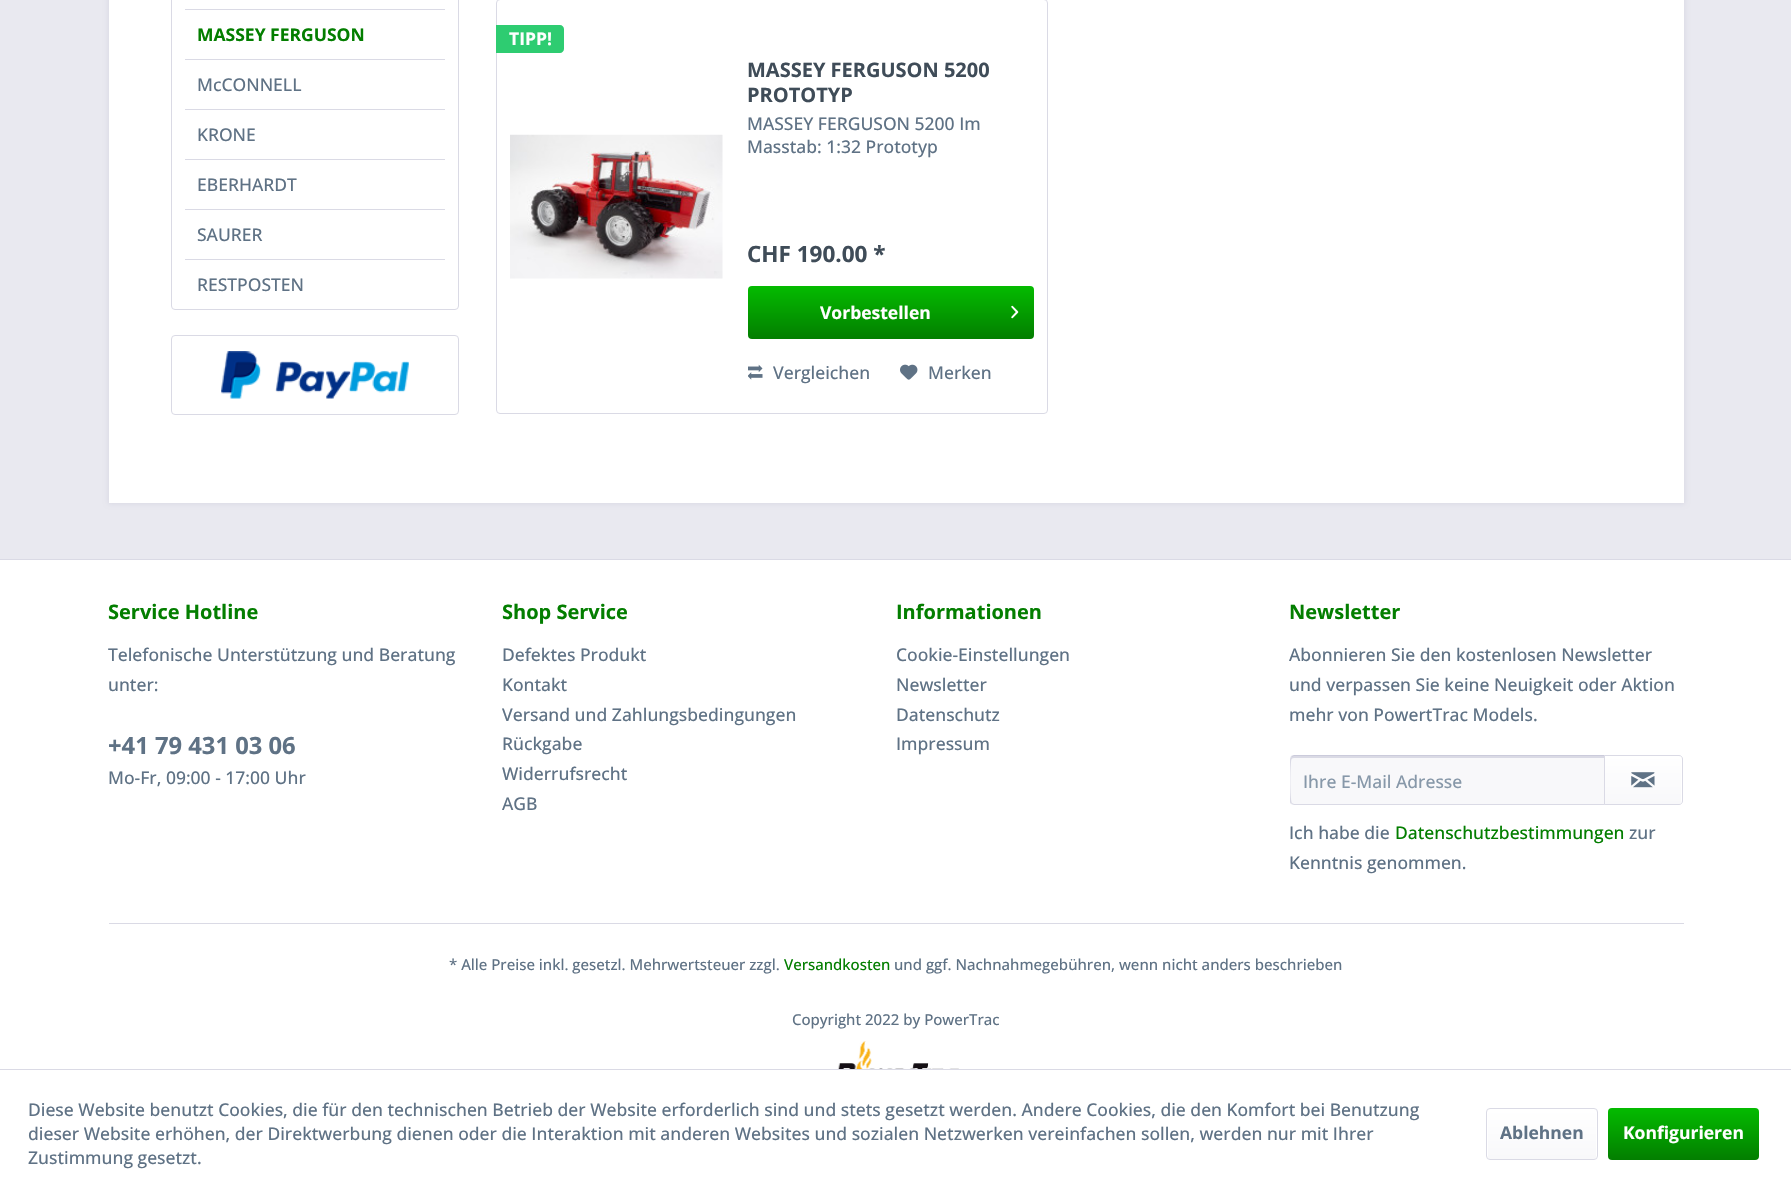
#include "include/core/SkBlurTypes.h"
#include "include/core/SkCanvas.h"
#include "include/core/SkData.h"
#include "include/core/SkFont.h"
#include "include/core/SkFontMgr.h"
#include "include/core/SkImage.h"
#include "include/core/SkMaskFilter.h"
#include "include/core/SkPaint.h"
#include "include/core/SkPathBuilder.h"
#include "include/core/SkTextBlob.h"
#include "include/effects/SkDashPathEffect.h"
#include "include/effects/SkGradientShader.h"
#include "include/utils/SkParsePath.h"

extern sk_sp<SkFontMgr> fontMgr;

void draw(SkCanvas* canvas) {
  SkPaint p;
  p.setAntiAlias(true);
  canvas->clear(SkColorSetRGB(233, 233, 240));
  p.setColor(SkColorSetRGB(218, 218, 229));
  p.setMaskFilter(SkMaskFilter::MakeBlur(kNormal_SkBlurStyle, 2.5f));
  canvas->drawRect(SkRect::MakeLTRB(108, -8, 1685, 504), p);
  p.setMaskFilter(nullptr);
  p.setColor(SK_ColorWHITE);
  canvas->drawRect(SkRect::MakeLTRB(109, 0, 1684, 503), p);
  p.setStyle(SkPaint::kStroke_Style);
  p.setStrokeWidth(1);
  p.setColor(SkColorSetRGB(218, 218, 229));
  canvas->drawRoundRect(SkRect::MakeLTRB(171.5f, -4.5f, 458.5f, 309.5f), 3.5f, 3.5f, p);
  p.setStyle(SkPaint::kFill_Style);
  canvas->drawRect(SkRect::MakeLTRB(185, 9, 445, 10), p);
  canvas->drawRect(SkRect::MakeLTRB(185, 59, 445, 60), p);
  canvas->drawRect(SkRect::MakeLTRB(185, 109, 445, 110), p);
  canvas->drawRect(SkRect::MakeLTRB(185, 159, 445, 160), p);
  canvas->drawRect(SkRect::MakeLTRB(185, 209, 445, 210), p);
  canvas->drawRect(SkRect::MakeLTRB(185, 259, 445, 260), p);
  p.setStyle(SkPaint::kStroke_Style);
  canvas->drawRoundRect(SkRect::MakeLTRB(171.5f, 335.5f, 458.5f, 414.5f), 3.5f, 3.5f, p);
  canvas->drawImageRect(SkImages::DeferredFromEncodedData(SkData::MakeFromFileName("images/1.png")), SkRect::MakeLTRB(221, 351, 409, 399), SkSamplingOptions());
  canvas->drawRoundRect(SkRect::MakeLTRB(496.5f, -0.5f, 1047.5f, 413.5f), 3.5f, 3.5f, p);
  p.setStyle(SkPaint::kFill_Style);
  p.setColor(SkColorSetRGB(46, 204, 113));
  canvas->drawPath(SkPathBuilder().moveTo(496, 25).lineTo(560, 25).cubicTo(562, 25, 564, 27, 564, 29).lineTo(564, 49).cubicTo(564, 51, 562, 53, 560, 53).lineTo(496, 53).close().detach(), p);
  canvas->drawImageRect(SkImages::DeferredFromEncodedData(SkData::MakeFromFileName("images/2.png")), SkRect::MakeLTRB(510, 134, 723, 279), SkSamplingOptions());
  {
    const SkColor colors[] = {SkColorSetRGB(4, 187, 0), SkColorSetRGB(3, 126, 0)};
    const float stops[] = {0, 1};
    const SkPoint ends[] = {{891, 286}, {891, 339}};
    p.setShader(SkGradientShader::MakeLinear(ends, colors, stops, 2, SkTileMode::kClamp));
    p.setAlpha(255);
  }
  canvas->drawRoundRect(SkRect::MakeLTRB(748, 286, 1034, 339), 4, 4, p);
  canvas->drawImageRect(SkImages::DeferredFromEncodedData(SkData::MakeFromFileName("images/3.png")), SkRect::MakeLTRB(1011, 305, 1019, 319), SkSamplingOptions());
  canvas->drawImageRect(SkImages::DeferredFromEncodedData(SkData::MakeFromFileName("images/4.png")), SkRect::MakeLTRB(748, 364, 763, 380), SkSamplingOptions());
  canvas->drawImageRect(SkImages::DeferredFromEncodedData(SkData::MakeFromFileName("images/5.png")), SkRect::MakeLTRB(900, 364, 918, 380), SkSamplingOptions());
  p.setShader(nullptr);
  p.setColor(SK_ColorWHITE);
  canvas->drawRect(SkRect::MakeLTRB(0, 560, 1791, 1069), p);
  p.setColor(SkColorSetRGB(218, 218, 229));
  canvas->drawRect(SkRect::MakeLTRB(0, 559, 1791, 560), p);
  canvas->drawRect(SkRect::MakeLTRB(109, 923, 1684, 924), p);
  p.setColor(SkColorSetRGB(248, 248, 250));
  canvas->drawPath(SkPathBuilder().moveTo(1293.5f, 756).lineTo(1604, 756).lineTo(1604, 804).lineTo(1293.5f, 804).cubicTo(1292, 804, 1291, 803, 1291, 801.5f).lineTo(1291, 758.5f).cubicTo(1291, 757, 1292, 756, 1293.5f, 756).close().detach(), p);
  p.setColor(SkColorSetRGB(218, 218, 229));
  canvas->drawPath(SkPathBuilder().moveTo(1294, 758).lineTo(1604, 758).lineTo(1604, 756).lineTo(1294, 756).cubicTo(1292, 756, 1291, 757, 1291, 758).lineTo(1291, 760).cubicTo(1291, 759, 1292, 758, 1294, 758).close().detach(), p);
  p.setColor(SkColorSetRGB(203, 203, 219));
  canvas->drawPath(SkPathBuilder().moveTo(1294, 755).lineTo(1291, 756).lineTo(1292, 757).lineTo(1294, 756).lineTo(1604, 756).lineTo(1605, 755).close().detach(), p);
  p.setColor(SkColorSetRGB(218, 218, 229));
  canvas->drawPath(SkPathBuilder().moveTo(1605, 805).lineTo(1604, 804).lineTo(1294, 804).lineTo(1292, 803).lineTo(1291, 804).lineTo(1294, 805).close().detach(), p);
  canvas->drawPath(SkPathBuilder().moveTo(1290, 759).lineTo(1290, 801).cubicTo(1290, 802, 1290, 803, 1291, 804).lineTo(1292, 803).cubicTo(1290, 802, 1290, 758, 1292, 757).lineTo(1291, 756).close().detach(), p);
  {
    const SkColor colors[] = {SK_ColorWHITE, SkColorSetRGB(248, 248, 250)};
    const float stops[] = {0, 1};
    const SkPoint ends[] = {{1643, 756}, {1643, 804}};
    p.setShader(SkGradientShader::MakeLinear(ends, colors, stops, 2, SkTileMode::kClamp));
    p.setAlpha(255);
  }
  canvas->drawPath(SkPathBuilder().moveTo(1605, 756).lineTo(1678.5f, 756).cubicTo(1680, 756, 1681, 757, 1681, 758.5f).lineTo(1681, 801.5f).cubicTo(1681, 803, 1680, 804, 1678.5f, 804).lineTo(1605, 804).close().detach(), p);
  p.setStyle(SkPaint::kStroke_Style);
  p.setShader(nullptr);
  p.setColor(SkColorSetRGB(218, 218, 229));
  canvas->drawPath(SkPathBuilder().moveTo(1604.5f, 755.5f).lineTo(1679, 755.5f).cubicTo(1681, 755.5f, 1682.5f, 757, 1682.5f, 759).lineTo(1682.5f, 801).cubicTo(1682.5f, 803, 1681, 804.5f, 1679, 804.5f).lineTo(1604.5f, 804.5f).close().detach(), p);
  canvas->drawImageRect(SkImages::DeferredFromEncodedData(SkData::MakeFromFileName("images/6.png")), SkRect::MakeLTRB(1631, 772, 1655, 788), SkSamplingOptions());
  canvas->drawImageRect(SkImages::DeferredFromEncodedData(SkData::MakeFromFileName("images/7.png")), SkRect::MakeLTRB(833, 1041, 959, 1069), SkSamplingOptions());
  p.setStyle(SkPaint::kFill_Style);
  p.setColor(SK_ColorWHITE);
  canvas->drawRect(SkRect::MakeLTRB(0, 1070, 1791, 1196), p);
  p.setColor(SkColorSetRGB(218, 218, 229));
  canvas->drawRect(SkRect::MakeLTRB(0, 1069, 1791, 1070), p);
  {
    const SkColor colors[] = {SK_ColorWHITE, SkColorSetRGB(248, 248, 250)};
    const float stops[] = {0, 1};
    const SkPoint ends[] = {{1542, 1109}, {1542, 1159}};
    p.setShader(SkGradientShader::MakeLinear(ends, colors, stops, 2, SkTileMode::kClamp));
    p.setAlpha(255);
  }
  canvas->drawRoundRect(SkRect::MakeLTRB(1488, 1109, 1596, 1159), 2.5f, 2.5f, p);
  p.setStyle(SkPaint::kStroke_Style);
  p.setShader(nullptr);
  p.setColor(SkColorSetRGB(218, 218, 229));
  canvas->drawRoundRect(SkRect::MakeLTRB(1486.5f, 1108.5f, 1597.5f, 1159.5f), 3.5f, 3.5f, p);
  p.setStyle(SkPaint::kFill_Style);
  {
    const SkColor colors[] = {SkColorSetRGB(4, 187, 0), SkColorSetRGB(3, 126, 0)};
    const float stops[] = {0, 1};
    const SkPoint ends[] = {{1683, 1108}, {1683, 1160}};
    p.setShader(SkGradientShader::MakeLinear(ends, colors, stops, 2, SkTileMode::kClamp));
    p.setAlpha(255);
  }
  canvas->drawRoundRect(SkRect::MakeLTRB(1608, 1108, 1759, 1160), 4, 4, p);
  SkFont font1(fontMgr->matchFamilyStyle("Open Sans", SkFontStyle::Bold()), 17.5f);
  font1.setSubpixel(true);
  p.setShader(nullptr);
  p.setColor(SkColorSetRGB(3, 126, 0));
  canvas->drawString("MASSEY FERGUSON", 197, 41, font1, p);
  SkFont font2(fontMgr->matchFamilyStyle("Open Sans", SkFontStyle(500, SkFontStyle::kNormal_Width, SkFontStyle::kUpright_Slant)), 17.5f);
  font2.setSubpixel(true);
  p.setColor(SkColorSetRGB(95, 114, 133));
  canvas->drawString("McCONNELL", 197, 91, font2, p);
  canvas->drawString("KRONE", 197, 141, font2, p);
  canvas->drawString("EBERHARDT", 197, 191, font2, p);
  canvas->drawString("SAURER", 197, 241, font2, p);
  canvas->drawString("RESTPOSTEN", 197, 291, font2, p);
  p.setColor(SK_ColorWHITE);
  canvas->drawString("TIPP!", 509, 45, font1, p);
  SkFont font3(fontMgr->matchFamilyStyle("Open Sans", SkFontStyle::Bold()), 20);
  font3.setSubpixel(true);
  p.setColor(SkColorSetRGB(63, 76, 88));
  canvas->drawString("MASSEY FERGUSON 5200", 747, 77, font3, p);
  canvas->drawString("PROTOTYP", 747, 102, font3, p);
  p.setColor(SkColorSetRGB(95, 114, 133));
  canvas->drawString("MASSEY FERGUSON 5200 Im", 747, 130, font2, p);
  canvas->drawString("Masstab: 1:32 Prototyp", 747, 153, font2, p);
  SkFont font4(fontMgr->matchFamilyStyle("Open Sans", SkFontStyle::Bold()), 22.5f);
  font4.setSubpixel(true);
  p.setColor(SkColorSetRGB(63, 76, 88));
  canvas->drawString("CHF 190.00 *", 747, 262, font4, p);
  p.setColor(SK_ColorWHITE);
  canvas->drawString("Vorbestellen", 820, 319, font1, p);
  p.setColor(SkColorSetRGB(95, 114, 133));
  canvas->drawString("Vergleichen", 773, 379, font2, p);
  canvas->drawString("Merken", 928, 379, font2, p);
  p.setColor(SkColorSetRGB(3, 126, 0));
  canvas->drawString("Service Hotline", 108, 619, font3, p);
  p.setColor(SkColorSetRGB(95, 114, 133));
  canvas->drawString("Telefonische Unterstützung und Beratung", 108, 661, font2, p);
  canvas->drawString("unter:", 108, 691, font2, p);
  SkFont font5(fontMgr->matchFamilyStyle("Open Sans", SkFontStyle::Bold()), 23.75f);
  font5.setSubpixel(true);
  canvas->drawString("+41 79 431 03 06", 108, 754, font5, p);
  canvas->drawString("Mo-Fr, 09:00 - 17:00 Uhr", 108, 784, font2, p);
  p.setColor(SkColorSetRGB(3, 126, 0));
  canvas->drawString("Shop Service", 502, 619, font3, p);
  p.setColor(SkColorSetRGB(95, 114, 133));
  canvas->drawString("Defektes Produkt", 502, 661, font2, p);
  canvas->drawString("Kontakt", 502, 691, font2, p);
  canvas->drawString("Versand und Zahlungsbedingungen", 502, 721, font2, p);
  canvas->drawString("Rückgabe", 502, 750, font2, p);
  canvas->drawString("Widerrufsrecht", 502, 780, font2, p);
  canvas->drawString("AGB", 502, 810, font2, p);
  p.setColor(SkColorSetRGB(3, 126, 0));
  canvas->drawString("Informationen", 896, 619, font3, p);
  p.setColor(SkColorSetRGB(95, 114, 133));
  canvas->drawString("Cookie-Einstellungen", 896, 661, font2, p);
  canvas->drawString("Newsletter", 896, 691, font2, p);
  canvas->drawString("Datenschutz", 896, 721, font2, p);
  canvas->drawString("Impressum", 896, 750, font2, p);
  p.setColor(SkColorSetRGB(3, 126, 0));
  canvas->drawString("Newsletter", 1289, 619, font3, p);
  p.setColor(SkColorSetRGB(95, 114, 133));
  canvas->drawString("Abonnieren Sie den kostenlosen Newsletter", 1289, 661, font2, p);
  canvas->drawString("und verpassen Sie keine Neuigkeit oder Aktion", 1289, 691, font2, p);
  canvas->drawString("mehr von PowertTrac Models.", 1289, 721, font2, p);
  p.setColor(SkColorSetRGB(135, 152, 169));
  canvas->drawString("Ihre E-Mail Adresse", 1303, 788, font2, p);
  p.setColor(SkColorSetRGB(95, 114, 133));
  canvas->drawString("Ich habe die", 1289, 839, font2, p);
  p.setColor(SkColorSetRGB(3, 126, 0));
  canvas->drawString("Datenschutzbestimmungen", 1395, 839, font2, p);
  p.setColor(SkColorSetRGB(95, 114, 133));
  canvas->drawString("zur", 1629, 839, font2, p);
  canvas->drawString("Kenntnis genommen.", 1289, 869, font2, p);
  SkFont font6(fontMgr->matchFamilyStyle("Open Sans", SkFontStyle(500, SkFontStyle::kNormal_Width, SkFontStyle::kUpright_Slant)), 15);
  font6.setSubpixel(true);
  canvas->drawString("* Alle Preise inkl. gesetzl. Mehrwertsteuer zzgl.", 449, 970, font6, p);
  p.setColor(SkColorSetRGB(3, 126, 0));
  canvas->drawString("Versandkosten", 784, 970, font6, p);
  p.setColor(SkColorSetRGB(95, 114, 133));
  canvas->drawString("und ggf. Nachnahmegebühren, wenn nicht anders beschrieben", 894, 970, font6, p);
  canvas->drawString("Copyright 2022 by PowerTrac", 792, 1025, font6, p);
  canvas->drawString("Diese Website benutzt Cookies, die für den technischen Betrieb der Website erforderlich sind und stets gesetzt werden. Andere Cookies, die den Komfort bei Benutzung", 28, 1116, font2, p);
  canvas->drawString("dieser Website erhöhen, der Direktwerbung dienen oder die Interaktion mit anderen Websites und sozialen Netzwerken vereinfachen sollen, werden nur mit Ihrer", 28, 1140, font2, p);
  canvas->drawString("Zustimmung gesetzt.", 28, 1164, font2, p);
  canvas->drawString("Ablehnen", 1500, 1139, font1, p);
  p.setColor(SK_ColorWHITE);
  canvas->drawString("Konfigurieren", 1623, 1139, font1, p);
}
